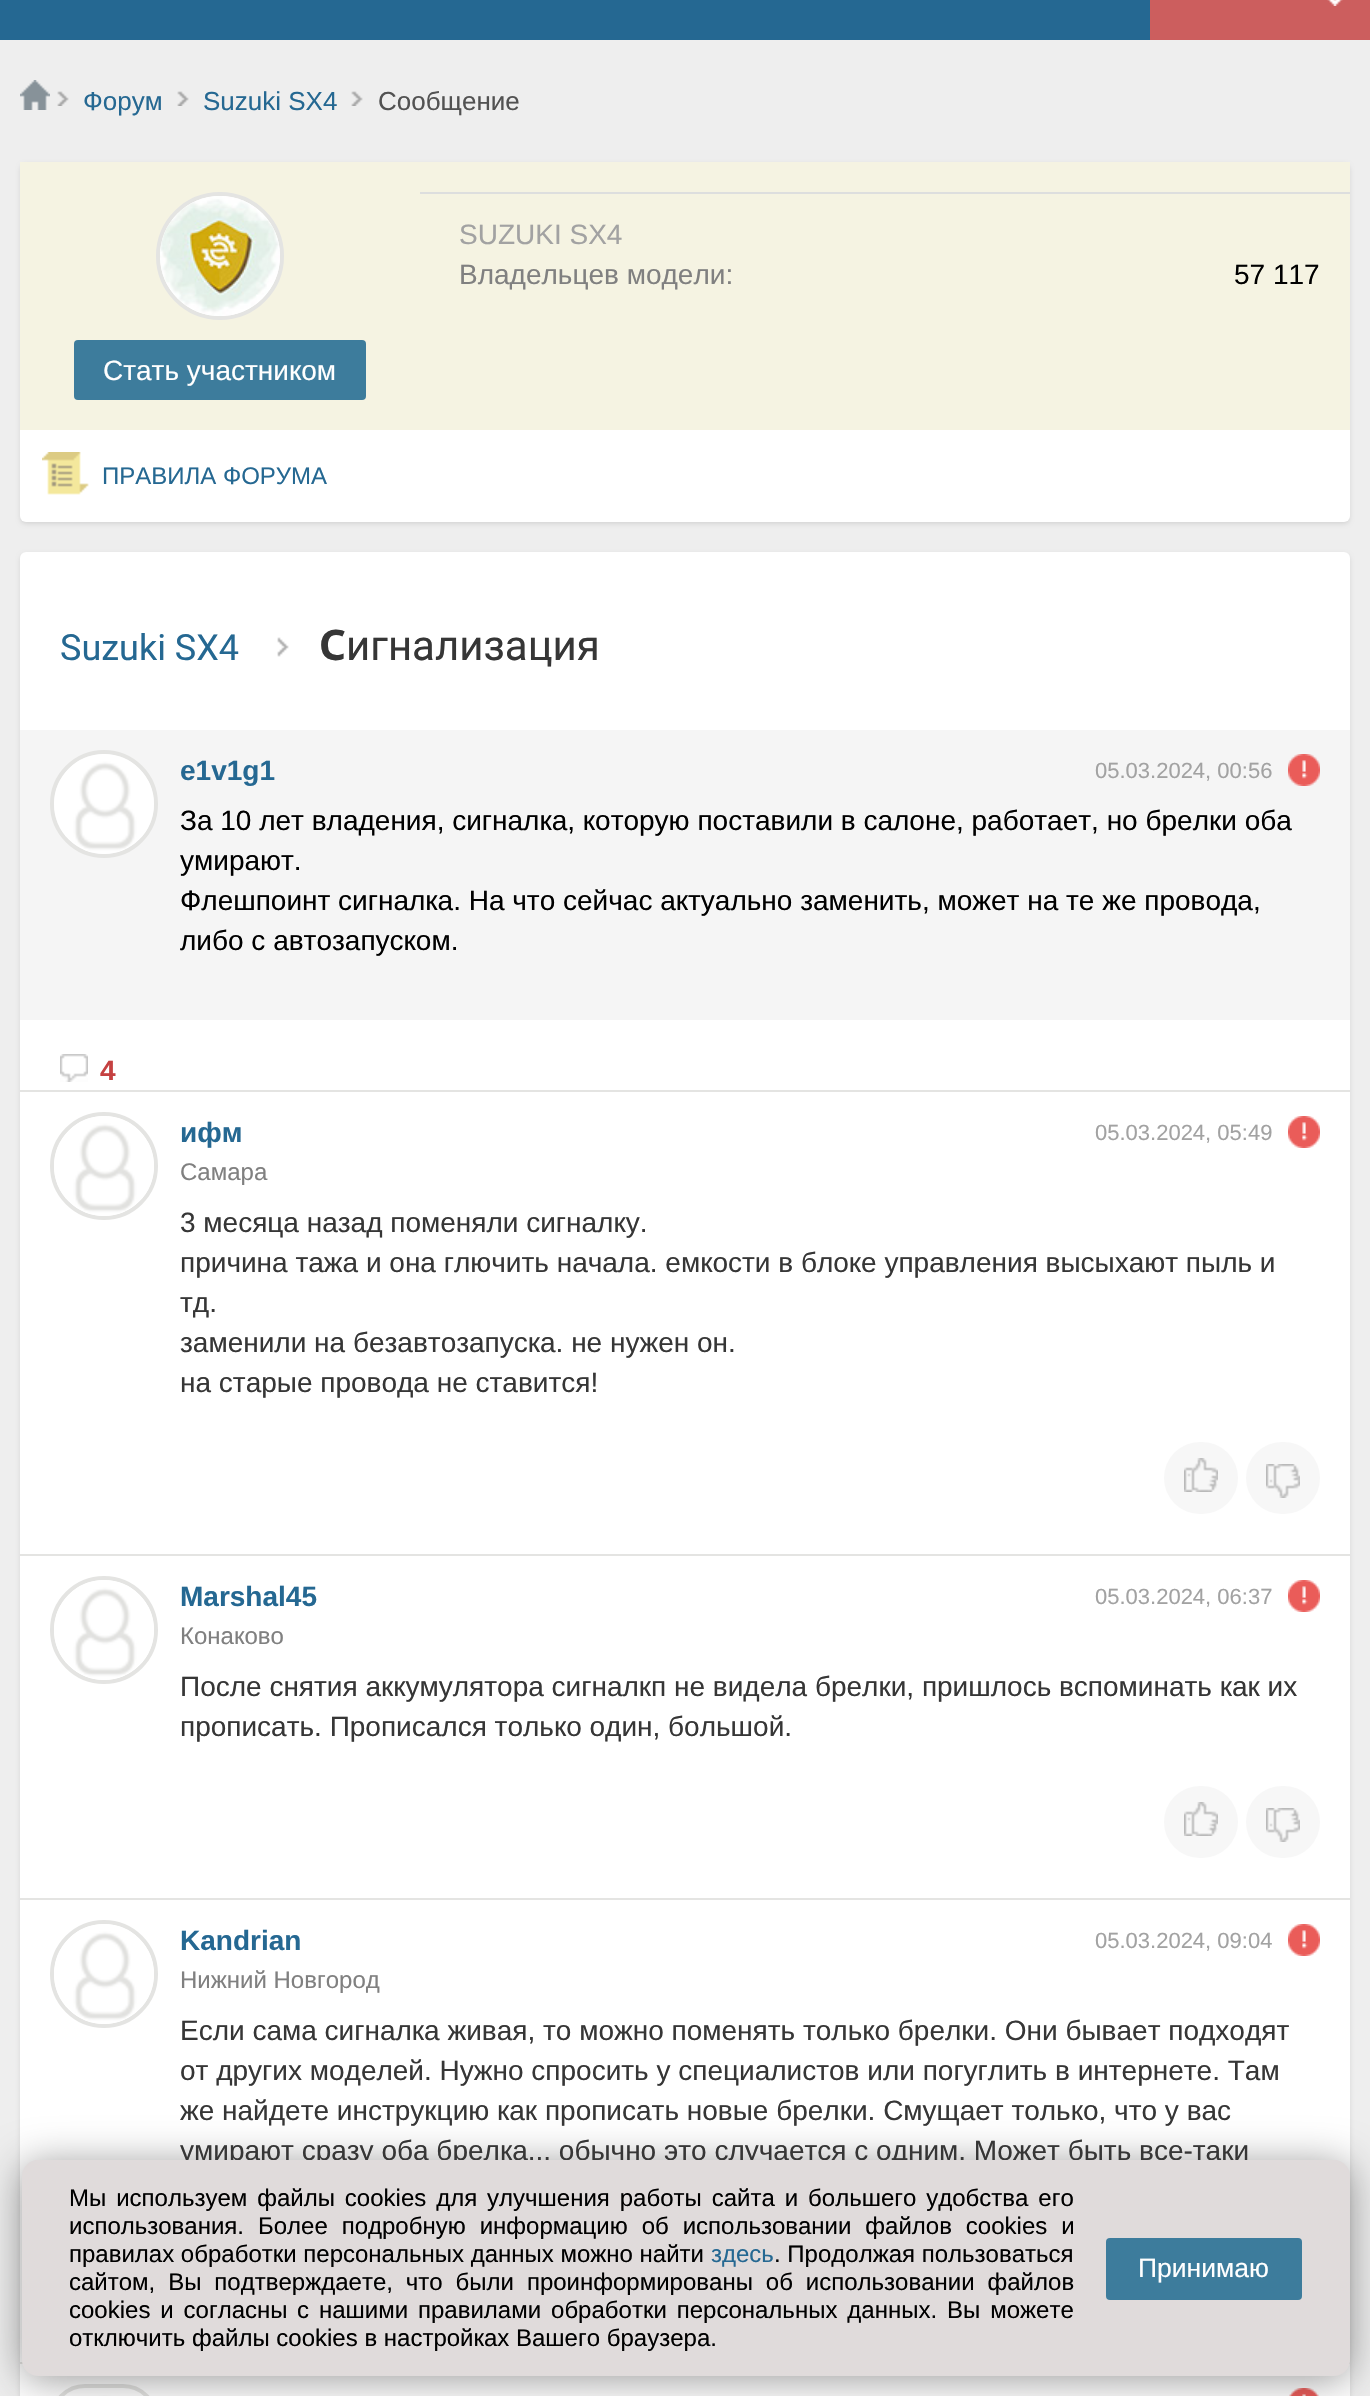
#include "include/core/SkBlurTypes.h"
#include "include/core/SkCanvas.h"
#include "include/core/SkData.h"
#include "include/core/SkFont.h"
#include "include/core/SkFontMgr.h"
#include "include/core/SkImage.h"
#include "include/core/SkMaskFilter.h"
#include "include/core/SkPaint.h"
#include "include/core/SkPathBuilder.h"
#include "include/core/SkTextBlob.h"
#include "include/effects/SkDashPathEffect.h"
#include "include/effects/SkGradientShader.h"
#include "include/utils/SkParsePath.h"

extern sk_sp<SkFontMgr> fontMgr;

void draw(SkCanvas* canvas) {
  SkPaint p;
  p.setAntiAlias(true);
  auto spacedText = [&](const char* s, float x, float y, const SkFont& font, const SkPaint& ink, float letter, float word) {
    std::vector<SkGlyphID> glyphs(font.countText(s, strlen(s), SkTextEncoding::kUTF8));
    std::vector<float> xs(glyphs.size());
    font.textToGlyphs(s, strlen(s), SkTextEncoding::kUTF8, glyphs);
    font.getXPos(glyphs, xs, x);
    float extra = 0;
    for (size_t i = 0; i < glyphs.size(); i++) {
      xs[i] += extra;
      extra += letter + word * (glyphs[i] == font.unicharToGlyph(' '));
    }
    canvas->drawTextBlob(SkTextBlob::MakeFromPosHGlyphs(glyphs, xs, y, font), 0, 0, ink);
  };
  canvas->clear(SkColorSetRGB(238, 238, 238));
  p.setColor(SkColorSetRGB(37, 104, 146));
  canvas->drawRect(SkRect::MakeLTRB(0, 0, 1150, 40), p);
  p.setColor(SkColorSetRGB(204, 94, 94));
  canvas->drawRect(SkRect::MakeLTRB(1150, 0, 1370, 40), p);
  canvas->drawImageRect(SkImages::DeferredFromEncodedData(SkData::MakeFromFileName("images/1.png")), SkRect::MakeLTRB(1327, 0, 1343, 6), SkSamplingOptions());
  canvas->drawImageRect(SkImages::DeferredFromEncodedData(SkData::MakeFromFileName("images/2.png")), SkRect::MakeLTRB(20, 80, 50, 110), SkSamplingOptions());
  canvas->drawImageRect(SkImages::DeferredFromEncodedData(SkData::MakeFromFileName("images/3.png")), SkRect::MakeLTRB(57, 91, 69, 106), SkSamplingOptions());
  canvas->drawImageRect(SkImages::DeferredFromEncodedData(SkData::MakeFromFileName("images/3.png")), SkRect::MakeLTRB(177, 91, 189, 106), SkSamplingOptions());
  canvas->drawImageRect(SkImages::DeferredFromEncodedData(SkData::MakeFromFileName("images/3.png")), SkRect::MakeLTRB(351, 91, 363, 106), SkSamplingOptions());
  p.setColor(SkColorSetARGB(26, 0, 0, 0));
  p.setMaskFilter(SkMaskFilter::MakeBlur(kNormal_SkBlurStyle, 2));
  canvas->drawRoundRect(SkRect::MakeLTRB(20, 164, 1350, 524), 6, 6, p);
  p.setMaskFilter(nullptr);
  p.setColor(SK_ColorWHITE);
  canvas->drawRoundRect(SkRect::MakeLTRB(20, 162, 1350, 522), 6, 6, p);
  p.setColor(SkColorSetRGB(245, 243, 226));
  canvas->drawRect(SkRect::MakeLTRB(20, 162, 1350, 430), p);
  p.setColor(SkColorSetRGB(221, 222, 222));
  canvas->drawRect(SkRect::MakeLTRB(420, 192, 1350, 194), p);
  p.setColor(SK_ColorWHITE);
  canvas->drawCircle(220, 256, 62, p);
  p.setStyle(SkPaint::kStroke_Style);
  p.setStrokeWidth(4);
  p.setColor(SkColorSetRGB(228, 228, 226));
  canvas->drawCircle(220, 256, 62, p);
  canvas->drawImageRect(SkImages::DeferredFromEncodedData(SkData::MakeFromFileName("images/4.png")), SkRect::MakeLTRB(160, 196, 280, 316), SkSamplingOptions());
  p.setStyle(SkPaint::kFill_Style);
  p.setColor(SkColorSetRGB(61, 124, 156));
  canvas->drawRoundRect(SkRect::MakeLTRB(74, 340, 366, 400), 4, 4, p);
  canvas->drawImageRect(SkImages::DeferredFromEncodedData(SkData::MakeFromFileName("images/5.png")), SkRect::MakeLTRB(42, 452, 89, 495), SkSamplingOptions());
  p.setColor(SkColorSetARGB(26, 0, 0, 0));
  p.setMaskFilter(SkMaskFilter::MakeBlur(kNormal_SkBlurStyle, 2));
  canvas->drawRoundRect(SkRect::MakeLTRB(20, 554, 1350, 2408), 6, 6, p);
  p.setMaskFilter(nullptr);
  p.setColor(SK_ColorWHITE);
  canvas->drawRoundRect(SkRect::MakeLTRB(20, 552, 1350, 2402), 6, 6, p);
  canvas->drawImageRect(SkImages::DeferredFromEncodedData(SkData::MakeFromFileName("images/6.png")), SkRect::MakeLTRB(277, 637, 289, 657), SkSamplingOptions());
  p.setColor(SkColorSetRGB(245, 245, 245));
  canvas->drawRect(SkRect::MakeLTRB(20, 730, 1350, 1020), p);
  p.setStyle(SkPaint::kStroke_Style);
  p.setColor(SkColorSetRGB(228, 228, 226));
  canvas->drawCircle(104, 804, 52, p);
  canvas->drawImageRect(SkImages::DeferredFromEncodedData(SkData::MakeFromFileName("images/7.png")), SkRect::MakeLTRB(54, 754, 154, 854), SkSamplingOptions());
  canvas->drawImageRect(SkImages::DeferredFromEncodedData(SkData::MakeFromFileName("images/8.png")), SkRect::MakeLTRB(1288, 754, 1320, 786), SkSamplingOptions());
  canvas->drawImageRect(SkImages::DeferredFromEncodedData(SkData::MakeFromFileName("images/9.png")), SkRect::MakeLTRB(60, 1054, 88, 1082), SkSamplingOptions());
  p.setStyle(SkPaint::kFill_Style);
  canvas->drawRect(SkRect::MakeLTRB(20, 1090, 1350, 1092), p);
  p.setStyle(SkPaint::kStroke_Style);
  canvas->drawCircle(104, 1166, 52, p);
  canvas->drawImageRect(SkImages::DeferredFromEncodedData(SkData::MakeFromFileName("images/10.png")), SkRect::MakeLTRB(54, 1116, 154, 1216), SkSamplingOptions());
  canvas->drawImageRect(SkImages::DeferredFromEncodedData(SkData::MakeFromFileName("images/11.png")), SkRect::MakeLTRB(1288, 1116, 1320, 1148), SkSamplingOptions());
  p.setStyle(SkPaint::kFill_Style);
  p.setColor(SkColorSetRGB(247, 247, 247));
  canvas->drawRoundRect(SkRect::MakeLTRB(1164, 1442, 1238, 1514), 36, 36, p);
  canvas->drawImageRect(SkImages::DeferredFromEncodedData(SkData::MakeFromFileName("images/12.png")), SkRect::MakeLTRB(1184, 1458, 1218, 1492), SkSamplingOptions());
  canvas->drawRoundRect(SkRect::MakeLTRB(1246, 1442, 1320, 1514), 36, 36, p);
  canvas->drawImageRect(SkImages::DeferredFromEncodedData(SkData::MakeFromFileName("images/13.png")), SkRect::MakeLTRB(1266, 1464, 1300, 1498), SkSamplingOptions());
  p.setColor(SkColorSetRGB(228, 228, 226));
  canvas->drawRect(SkRect::MakeLTRB(20, 1554, 1350, 1556), p);
  p.setStyle(SkPaint::kStroke_Style);
  canvas->drawCircle(104, 1630, 52, p);
  canvas->drawImageRect(SkImages::DeferredFromEncodedData(SkData::MakeFromFileName("images/14.png")), SkRect::MakeLTRB(54, 1580, 154, 1680), SkSamplingOptions());
  canvas->drawImageRect(SkImages::DeferredFromEncodedData(SkData::MakeFromFileName("images/11.png")), SkRect::MakeLTRB(1288, 1580, 1320, 1612), SkSamplingOptions());
  p.setStyle(SkPaint::kFill_Style);
  p.setColor(SkColorSetRGB(247, 247, 247));
  canvas->drawRoundRect(SkRect::MakeLTRB(1164, 1786, 1238, 1858), 36, 36, p);
  canvas->drawImageRect(SkImages::DeferredFromEncodedData(SkData::MakeFromFileName("images/12.png")), SkRect::MakeLTRB(1184, 1802, 1218, 1836), SkSamplingOptions());
  canvas->drawRoundRect(SkRect::MakeLTRB(1246, 1786, 1320, 1858), 36, 36, p);
  canvas->drawImageRect(SkImages::DeferredFromEncodedData(SkData::MakeFromFileName("images/13.png")), SkRect::MakeLTRB(1266, 1808, 1300, 1842), SkSamplingOptions());
  p.setColor(SkColorSetRGB(228, 228, 226));
  canvas->drawRect(SkRect::MakeLTRB(20, 1898, 1350, 1900), p);
  p.setStyle(SkPaint::kStroke_Style);
  canvas->drawCircle(104, 1974, 52, p);
  canvas->drawImageRect(SkImages::DeferredFromEncodedData(SkData::MakeFromFileName("images/15.png")), SkRect::MakeLTRB(54, 1924, 154, 2024), SkSamplingOptions());
  canvas->drawImageRect(SkImages::DeferredFromEncodedData(SkData::MakeFromFileName("images/11.png")), SkRect::MakeLTRB(1288, 1924, 1320, 1956), SkSamplingOptions());
  p.setStyle(SkPaint::kFill_Style);
  canvas->drawRect(SkRect::MakeLTRB(20, 2362, 1350, 2364), p);
  p.setStyle(SkPaint::kStroke_Style);
  canvas->drawRoundRect(SkRect::MakeLTRB(52, 2386, 156, 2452), 52, 52, p);
  canvas->drawImageRect(SkImages::DeferredFromEncodedData(SkData::MakeFromFileName("images/16.png")), SkRect::MakeLTRB(77, 2388, 131, 2396), SkSamplingOptions());
  canvas->drawImageRect(SkImages::DeferredFromEncodedData(SkData::MakeFromFileName("images/17.png")), SkRect::MakeLTRB(1289, 2388, 1319, 2396), SkSamplingOptions());
  p.setStyle(SkPaint::kFill_Style);
  p.setColor(SkColorSetARGB(102, 0, 0, 0));
  p.setMaskFilter(SkMaskFilter::MakeBlur(kNormal_SkBlurStyle, 20));
  canvas->drawRoundRect(SkRect::MakeLTRB(22, 2164, 1350, 2380), 16, 16, p);
  p.setMaskFilter(nullptr);
  SkFont font1(fontMgr->matchFamilyStyle("Liberation Sans", SkFontStyle::Normal()), 26);
  font1.setSubpixel(true);
  p.setColor(SkColorSetRGB(37, 104, 146));
  canvas->drawString("Форум", 83, 110, font1, p);
  canvas->drawString("Suzuki SX4", 203, 110, font1, p);
  p.setColor(SkColorSetRGB(82, 82, 82));
  canvas->drawString("Сообщение", 378, 110, font1, p);
  SkFont font2(fontMgr->matchFamilyStyle("Liberation Sans", SkFontStyle::Normal()), 28);
  font2.setSubpixel(true);
  p.setColor(SkColorSetRGB(162, 162, 162));
  canvas->drawString("SUZUKI SX4", 459, 244, font2, p);
  p.setColor(SkColorSetRGB(128, 128, 128));
  canvas->drawString("Владельцев модели:", 459, 284, font2, p);
  p.setColor(SK_ColorBLACK);
  canvas->drawString("57 117", 1234, 284, font2, p);
  p.setColor(SK_ColorWHITE);
  canvas->drawString("Cтать участником", 103, 380, font2, p);
  SkFont font3(fontMgr->matchFamilyStyle("Liberation Sans", SkFontStyle::Normal()), 24);
  font3.setSubpixel(true);
  p.setColor(SkColorSetRGB(37, 104, 146));
  canvas->drawString("ПРАВИЛА ФОРУМА", 102, 484, font3, p);
  SkFont font4(fontMgr->matchFamilyStyle("Roboto", SkFontStyle::Normal()), 36);
  font4.setSubpixel(true);
  canvas->drawString("Suzuki SX4", 60, 660, font4, p);
  SkFont font5(fontMgr->matchFamilyStyle("Noto Sans", SkFontStyle::Bold()), 42);
  font5.setSubpixel(true);
  p.setColor(SkColorSetRGB(54, 54, 54));
  canvas->drawString("С", 319, 660, font5, p);
  SkFont font6(fontMgr->matchFamilyStyle("Roboto", SkFontStyle::Normal()), 42);
  font6.setSubpixel(true);
  canvas->drawString("игнализация", 346, 660, font6, p);
  SkFont font7(fontMgr->matchFamilyStyle("Liberation Sans", SkFontStyle::Bold()), 28);
  font7.setSubpixel(true);
  p.setColor(SkColorSetRGB(37, 104, 146));
  canvas->drawString("e1v1g1", 180, 780, font7, p);
  SkFont font8(fontMgr->matchFamilyStyle("Liberation Sans", SkFontStyle::Normal()), 22);
  font8.setSubpixel(true);
  p.setColor(SkColorSetRGB(162, 162, 162));
  canvas->drawString("05.03.2024, 00:56", 1095, 778, font8, p);
  p.setColor(SK_ColorBLACK);
  canvas->drawString("За 10 лет владения, сигналка, которую поставили в салоне, работает, но брелки оба", 180, 830, font2, p);
  canvas->drawString("умирают.", 180, 870, font2, p);
  canvas->drawString("Флешпоинт сигналка. На что сейчас актуально заменить, может на те же провода,", 180, 910, font2, p);
  canvas->drawString("либо с автозапуском.", 180, 950, font2, p);
  p.setColor(SkColorSetRGB(197, 65, 65));
  canvas->drawString("4", 100, 1080, font7, p);
  p.setColor(SkColorSetRGB(37, 104, 146));
  canvas->drawString("ифм", 180, 1142, font7, p);
  p.setColor(SkColorSetRGB(162, 162, 162));
  canvas->drawString("05.03.2024, 05:49", 1095, 1140, font8, p);
  p.setColor(SkColorSetRGB(128, 128, 128));
  canvas->drawString("Самара", 180, 1180, font3, p);
  p.setColor(SkColorSetRGB(54, 54, 54));
  canvas->drawString("3 месяца назад поменяли сигналку.", 180, 1232, font2, p);
  canvas->drawString("причина тажа и она глючить начала. емкости в блоке управления высыхают пыль и", 180, 1272, font2, p);
  canvas->drawString("тд.", 180, 1312, font2, p);
  canvas->drawString("заменили на безавтозапуска. не нужен он.", 180, 1352, font2, p);
  canvas->drawString("на старые провода не ставится!", 180, 1392, font2, p);
  p.setColor(SkColorSetRGB(37, 104, 146));
  canvas->drawString("Marshal45", 180, 1606, font7, p);
  p.setColor(SkColorSetRGB(162, 162, 162));
  canvas->drawString("05.03.2024, 06:37", 1095, 1604, font8, p);
  p.setColor(SkColorSetRGB(128, 128, 128));
  canvas->drawString("Конаково", 180, 1644, font3, p);
  p.setColor(SkColorSetRGB(54, 54, 54));
  canvas->drawString("После снятия аккумулятора сигналкп не видела брелки, пришлось вспоминать как их", 180, 1696, font2, p);
  canvas->drawString("прописать. Прописался только один, большой.", 180, 1736, font2, p);
  p.setColor(SkColorSetRGB(37, 104, 146));
  canvas->drawString("Kandrian", 180, 1950, font7, p);
  p.setColor(SkColorSetRGB(162, 162, 162));
  canvas->drawString("05.03.2024, 09:04", 1095, 1948, font8, p);
  p.setColor(SkColorSetRGB(128, 128, 128));
  canvas->drawString("Нижний Новгород", 180, 1988, font3, p);
  p.setColor(SkColorSetRGB(54, 54, 54));
  canvas->drawString("Если сама сигналка живая, то можно поменять только брелки. Они бывает подходят", 180, 2040, font2, p);
  canvas->drawString("от других моделей. Нужно спросить у специалистов или погуглить в интернете. Там", 180, 2080, font2, p);
  canvas->drawString("же найдете инструкцию как прописать новые брелки. Смущает только, что у вас", 180, 2120, font2, p);
  canvas->drawString("умирают сразу оба брелка... обычно это случается с одним. Может быть все-таки", 180, 2160, font2, p);
  p.setColor(SkColorSetRGB(224, 219, 219));
  canvas->drawRoundRect(SkRect::MakeLTRB(22, 2160, 1350, 2376), 16, 16, p);
  p.setColor(SK_ColorBLACK);
  spacedText("Мы используем файлы cookies для улучшения работы сайта и большего удобства его", 69, 2206, font3, p, 0, 3.25f);
  spacedText("использования. Более подробную информацию об использовании файлов cookies и", 69, 2234, font3, p, 0, 7.25f);
  canvas->drawString("правилах обработки персональных данных можно найти", 69, 2262, font3, p);
  p.setColor(SkColorSetRGB(37, 104, 146));
  canvas->drawString("здесь", 711, 2262, font3, p);
  p.setColor(SK_ColorBLACK);
  canvas->drawString(". Продолжая пользоваться", 774, 2262, font3, p);
  spacedText("сайтом, Вы подтверждаете, что были проинформированы об использовании файлов", 69, 2290, font3, p, 0, 6.25f);
  spacedText("cookies и согласны", 69, 2318, font3, p, 0, 3.25f);
  spacedText("с нашими правилами обработки персональных данных. Вы можете", 297, 2318, font3, p, 0, 3.25f);
  canvas->drawString("отключить файлы cookies в настройках Вашего браузера.", 69, 2346, font3, p);
  p.setColor(SkColorSetRGB(61, 124, 156));
  canvas->drawRoundRect(SkRect::MakeLTRB(1106, 2238, 1302, 2300), 4, 4, p);
  SkFont font9(fontMgr->matchFamilyStyle("Liberation Sans", SkFontStyle::Normal()), 26.5f);
  font9.setSubpixel(true);
  p.setColor(SK_ColorWHITE);
  canvas->drawString("Принимаю", 1138, 2277, font9, p);
}
